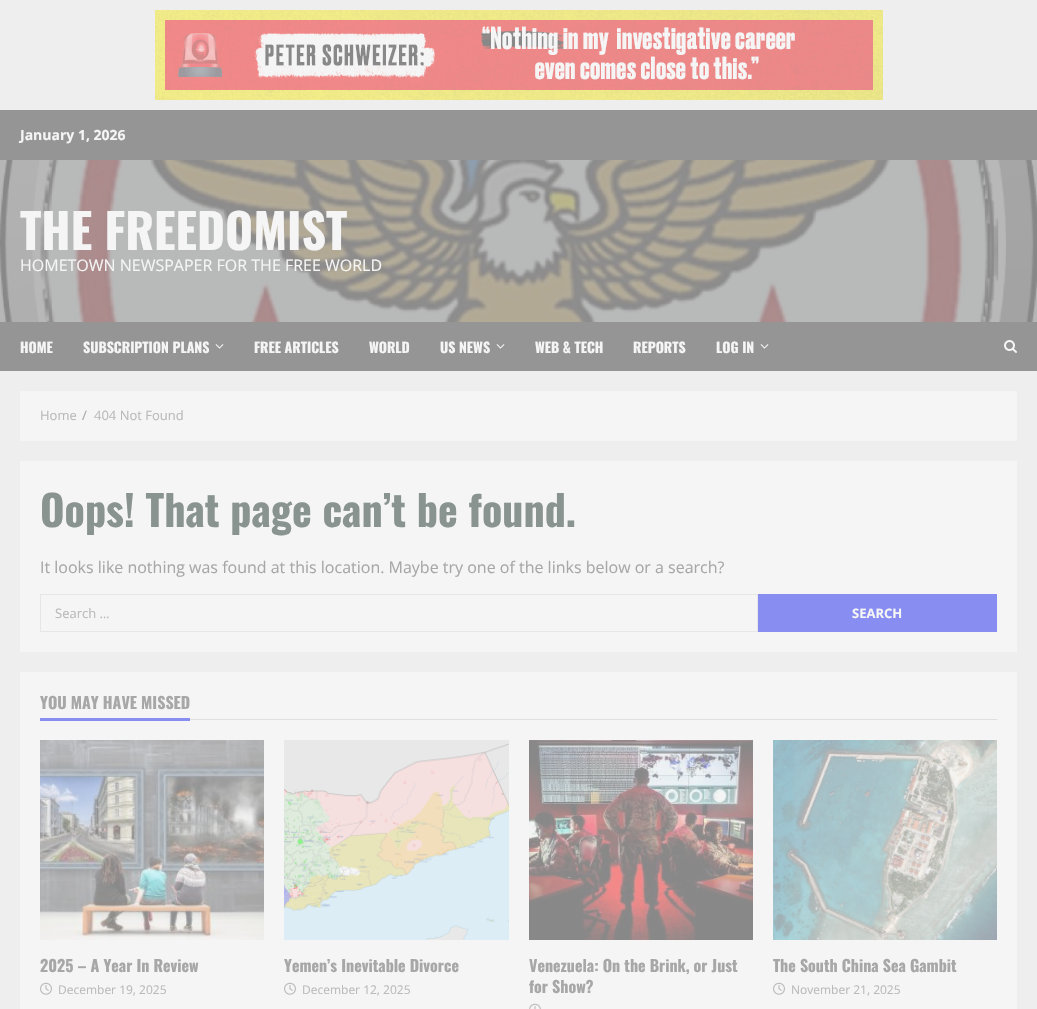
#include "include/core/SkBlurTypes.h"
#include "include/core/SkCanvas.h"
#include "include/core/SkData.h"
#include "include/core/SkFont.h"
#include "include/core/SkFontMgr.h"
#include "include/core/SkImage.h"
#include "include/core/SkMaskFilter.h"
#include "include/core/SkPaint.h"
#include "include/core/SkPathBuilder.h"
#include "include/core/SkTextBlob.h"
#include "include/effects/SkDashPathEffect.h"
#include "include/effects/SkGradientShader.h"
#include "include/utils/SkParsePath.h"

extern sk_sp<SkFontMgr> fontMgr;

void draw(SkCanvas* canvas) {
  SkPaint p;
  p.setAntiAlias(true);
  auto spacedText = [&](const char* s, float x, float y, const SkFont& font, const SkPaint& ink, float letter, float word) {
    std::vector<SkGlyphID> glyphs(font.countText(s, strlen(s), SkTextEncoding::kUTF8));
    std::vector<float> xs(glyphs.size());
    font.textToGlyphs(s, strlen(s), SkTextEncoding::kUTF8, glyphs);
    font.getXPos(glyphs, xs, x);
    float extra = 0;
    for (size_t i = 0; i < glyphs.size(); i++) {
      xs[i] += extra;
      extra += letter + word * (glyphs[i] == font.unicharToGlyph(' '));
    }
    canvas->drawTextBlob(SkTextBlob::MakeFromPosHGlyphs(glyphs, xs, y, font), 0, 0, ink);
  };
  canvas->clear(SkColorSetRGB(238, 238, 238));
  p.setColor(SkColorSetRGB(182, 182, 182));
  canvas->drawRect(SkRect::MakeLTRB(0, 160, 1037, 322), p);
  canvas->drawImageRect(SkImages::DeferredFromEncodedData(SkData::MakeFromFileName("images/1.png")), SkRect::MakeLTRB(155, 10, 883, 100), SkSamplingOptions());
  p.setColor(SkColorSetRGB(149, 149, 149));
  canvas->drawRect(SkRect::MakeLTRB(0, 110, 1037, 160), p);
  canvas->drawImageRect(SkImages::DeferredFromEncodedData(SkData::MakeFromFileName("images/2.png")), SkRect::MakeLTRB(0, 160, 1037, 322), SkSamplingOptions());
  canvas->drawRect(SkRect::MakeLTRB(0, 322, 1037, 371), p);
  canvas->drawImageRect(SkImages::DeferredFromEncodedData(SkData::MakeFromFileName("images/3.png")), SkRect::MakeLTRB(215, 344, 224, 349), SkSamplingOptions());
  canvas->drawImageRect(SkImages::DeferredFromEncodedData(SkData::MakeFromFileName("images/3.png")), SkRect::MakeLTRB(496, 344, 505, 349), SkSamplingOptions());
  canvas->drawImageRect(SkImages::DeferredFromEncodedData(SkData::MakeFromFileName("images/3.png")), SkRect::MakeLTRB(760, 344, 769, 349), SkSamplingOptions());
  canvas->drawImageRect(SkImages::DeferredFromEncodedData(SkData::MakeFromFileName("images/4.png")), SkRect::MakeLTRB(1004, 340, 1017, 353), SkSamplingOptions());
  p.setColor(SkColorSetRGB(245, 245, 245));
  canvas->drawRect(SkRect::MakeLTRB(20, 391, 1017, 441), p);
  canvas->drawRect(SkRect::MakeLTRB(20, 461, 1017, 652), p);
  p.setStyle(SkPaint::kStroke_Style);
  p.setStrokeWidth(1);
  p.setColor(SkColorSetRGB(230, 230, 230));
  canvas->drawRect(SkRect::MakeLTRB(40.5f, 594.5f, 757.5f, 631.5f), p);
  p.setStyle(SkPaint::kFill_Style);
  p.setColor(SkColorSetRGB(136, 141, 241));
  canvas->drawRect(SkRect::MakeLTRB(758, 594, 997, 632), p);
  p.setColor(SkColorSetRGB(245, 245, 245));
  canvas->drawRect(SkRect::MakeLTRB(20, 672, 1017, 1009), p);
  p.setColor(SkColorSetRGB(223, 223, 223));
  canvas->drawRect(SkRect::MakeLTRB(190, 719, 997, 720), p);
  p.setColor(SkColorSetRGB(136, 141, 241));
  canvas->drawRect(SkRect::MakeLTRB(40, 718, 190, 721), p);
  canvas->drawImageRect(SkImages::DeferredFromEncodedData(SkData::MakeFromFileName("images/5.png")), SkRect::MakeLTRB(40, 740, 264, 940), SkSamplingOptions());
  canvas->drawImageRect(SkImages::DeferredFromEncodedData(SkData::MakeFromFileName("images/6.png")), SkRect::MakeLTRB(40, 982, 52, 995), SkSamplingOptions());
  canvas->drawImageRect(SkImages::DeferredFromEncodedData(SkData::MakeFromFileName("images/7.png")), SkRect::MakeLTRB(284, 740, 509, 940), SkSamplingOptions());
  canvas->drawImageRect(SkImages::DeferredFromEncodedData(SkData::MakeFromFileName("images/6.png")), SkRect::MakeLTRB(284, 982, 296, 995), SkSamplingOptions());
  canvas->drawImageRect(SkImages::DeferredFromEncodedData(SkData::MakeFromFileName("images/8.png")), SkRect::MakeLTRB(529, 740, 753, 940), SkSamplingOptions());
  canvas->drawImageRect(SkImages::DeferredFromEncodedData(SkData::MakeFromFileName("images/9.png")), SkRect::MakeLTRB(529, 1003, 541, 1009), SkSamplingOptions());
  canvas->drawImageRect(SkImages::DeferredFromEncodedData(SkData::MakeFromFileName("images/10.png")), SkRect::MakeLTRB(773, 740, 997, 940), SkSamplingOptions());
  canvas->drawImageRect(SkImages::DeferredFromEncodedData(SkData::MakeFromFileName("images/6.png")), SkRect::MakeLTRB(773, 982, 785, 995), SkSamplingOptions());
  SkFont font1(fontMgr->matchFamilyStyle("Open Sans", SkFontStyle::Bold()), 14);
  font1.setSubpixel(true);
  p.setColor(SkColorSetRGB(245, 245, 245));
  canvas->drawString("January 1, 2026", 20, 140, font1, p);
  SkFont font2(fontMgr->matchFamilyStyle("Oswald", SkFontStyle::Bold()), 48);
  font2.setSubpixel(true);
  canvas->drawString("THE FREEDOMIST", 20, 250, font2, p);
  SkFont font3(fontMgr->matchFamilyStyle("Open Sans", SkFontStyle::Normal()), 16);
  font3.setSubpixel(true);
  canvas->drawString("HOMETOWN NEWSPAPER FOR THE FREE WORLD", 20, 271, font3, p);
  SkFont font4(fontMgr->matchFamilyStyle("Oswald", SkFontStyle::Bold()), 14);
  font4.setSubpixel(true);
  canvas->drawString("HOME", 20, 353, font4, p);
  canvas->drawString("SUBSCRIPTION PLANS", 83, 353, font4, p);
  canvas->drawString("FREE ARTICLES", 254, 353, font4, p);
  canvas->drawString("WORLD", 369, 353, font4, p);
  canvas->drawString("US NEWS", 440, 353, font4, p);
  canvas->drawString("WEB & TECH", 535, 353, font4, p);
  canvas->drawString("REPORTS", 633, 353, font4, p);
  canvas->drawString("LOG IN", 716, 353, font4, p);
  SkFont font5(fontMgr->matchFamilyStyle("Open Sans", SkFontStyle::Normal()), 13);
  font5.setSubpixel(true);
  p.setColor(SkColorSetRGB(186, 186, 186));
  canvas->drawString("Home", 40, 420, font5, p);
  p.setColor(SkColorSetRGB(167, 167, 167));
  canvas->drawString("/", 82, 420, font5, p);
  p.setColor(SkColorSetRGB(186, 186, 186));
  canvas->drawString("404 Not Found", 94, 420, font5, p);
  SkFont font6(fontMgr->matchFamilyStyle("Oswald", SkFontStyle::Bold()), 42);
  font6.setSubpixel(true);
  p.setColor(SkColorSetRGB(137, 147, 143));
  canvas->drawString("Oops! That page can’t be found.", 40, 527, font6, p);
  p.setColor(SkColorSetRGB(167, 167, 167));
  canvas->drawString("It looks like nothing was found at this location. Maybe try one of the links below or a search?", 40, 573, font3, p);
  p.setColor(SkColorSetRGB(186, 186, 186));
  canvas->drawString("Search …", 55, 618, font5, p);
  SkFont font7(fontMgr->matchFamilyStyle("Open Sans", SkFontStyle::Bold()), 13);
  font7.setSubpixel(true);
  p.setColor(SkColorSetRGB(245, 245, 245));
  canvas->drawString("SEARCH", 852, 618, font7, p);
  SkFont font8(fontMgr->matchFamilyStyle("Oswald", SkFontStyle::Bold()), 16);
  font8.setSubpixel(true);
  p.setColor(SkColorSetRGB(167, 167, 167));
  canvas->drawString("YOU MAY HAVE MISSED", 40, 709, font8, p);
  canvas->drawString("2025 – A Year In Review", 40, 972, font8, p);
  SkFont font9(fontMgr->matchFamilyStyle("Open Sans", SkFontStyle::Normal()), 12);
  font9.setSubpixel(true);
  p.setColor(SkColorSetRGB(186, 186, 186));
  canvas->drawString("December 19, 2025", 58, 994, font9, p);
  p.setColor(SkColorSetRGB(167, 167, 167));
  canvas->drawString("Yemen’s Inevitable Divorce", 284, 972, font8, p);
  p.setColor(SkColorSetRGB(186, 186, 186));
  canvas->drawString("December 12, 2025", 302, 994, font9, p);
  SkFont font10(fontMgr->matchFamilyStyle("Open Sans", SkFontStyle::Bold()), 10);
  font10.setSubpixel(true);
  p.setColor(SkColorSetRGB(174, 177, 180));
  spacedText("4 MIN READ", 556, 769, font10, p, 0.5f, 0);
  p.setColor(SkColorSetRGB(167, 167, 167));
  canvas->drawString("Venezuela: On the Brink, or Just", 529, 972, font8, p);
  canvas->drawString("for Show?", 529, 993, font8, p);
  p.setColor(SkColorSetRGB(169, 193, 199));
  spacedText("I", 819, 769, font10, p, 0.5f, 0);
  p.setColor(SkColorSetRGB(167, 167, 167));
  canvas->drawString("The South China Sea Gambit", 773, 972, font8, p);
  p.setColor(SkColorSetRGB(186, 186, 186));
  canvas->drawString("November 21, 2025", 791, 994, font9, p);
}
